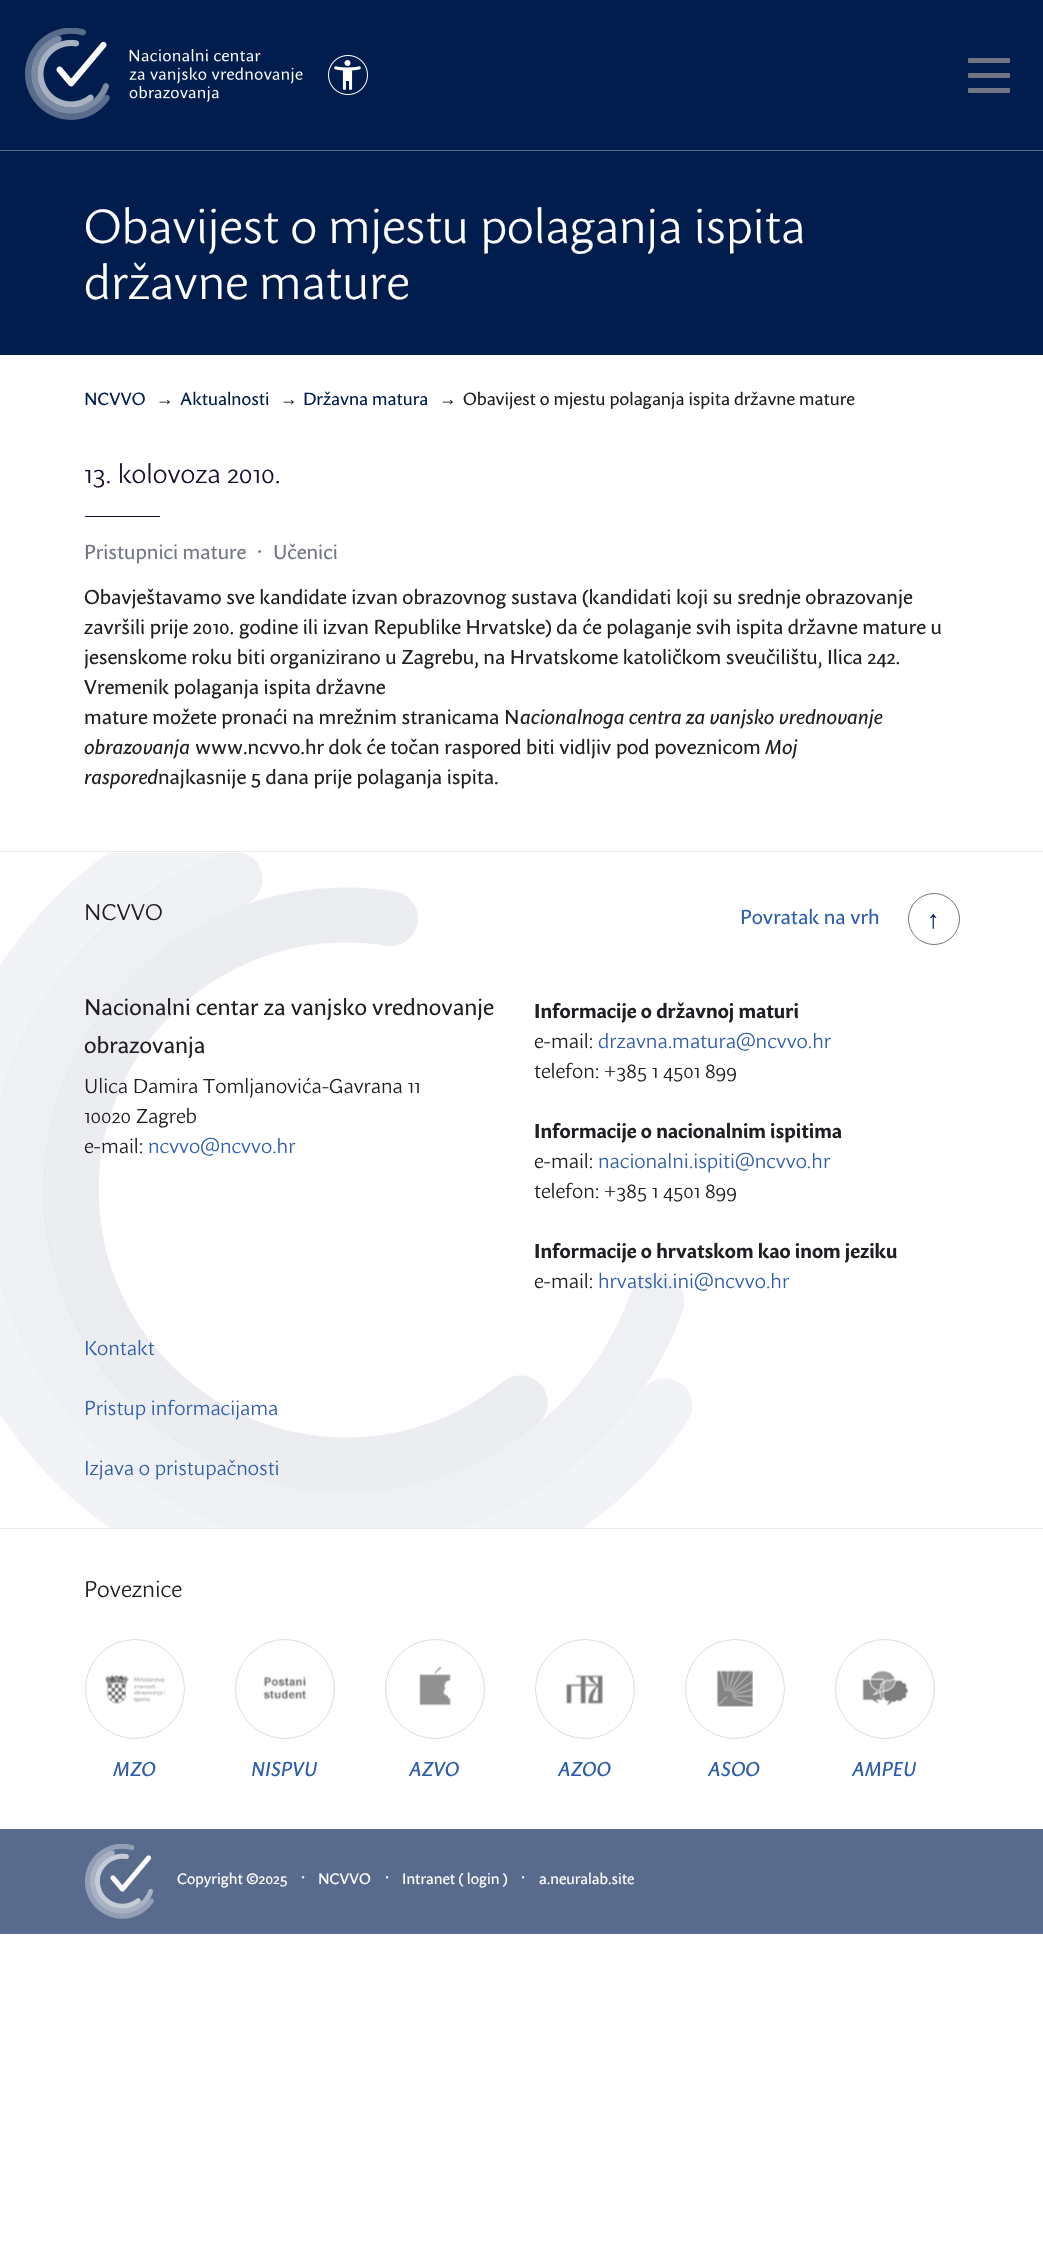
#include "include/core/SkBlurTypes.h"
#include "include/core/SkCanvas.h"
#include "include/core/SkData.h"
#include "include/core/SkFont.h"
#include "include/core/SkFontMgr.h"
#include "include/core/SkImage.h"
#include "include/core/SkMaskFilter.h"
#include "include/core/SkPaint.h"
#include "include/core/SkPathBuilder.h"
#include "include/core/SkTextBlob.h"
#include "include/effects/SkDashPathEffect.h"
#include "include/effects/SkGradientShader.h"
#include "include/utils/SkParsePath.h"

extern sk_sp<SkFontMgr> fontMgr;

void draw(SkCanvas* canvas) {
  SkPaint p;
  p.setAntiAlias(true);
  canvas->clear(SK_ColorWHITE);
  p.setColor(SkColorSetRGB(0, 29, 77));
  canvas->drawRect(SkRect::MakeLTRB(0, 0, 1043, 355), p);
  p.setColor(SkColorSetRGB(89, 107, 140));
  canvas->drawRect(SkRect::MakeLTRB(0, 150, 1043, 151), p);
  canvas->drawImageRect(SkImages::DeferredFromEncodedData(SkData::MakeFromFileName("images/1.png")), SkRect::MakeLTRB(25, 28, 303, 120), SkSamplingOptions());
  canvas->drawImageRect(SkImages::DeferredFromEncodedData(SkData::MakeFromFileName("images/2.png")), SkRect::MakeLTRB(328, 55, 368, 95), SkSamplingOptions());
  p.setColor(SkColorSetRGB(114, 118, 130));
  canvas->drawRoundRect(SkRect::MakeLTRB(968, 73, 1010, 78), 1, 1, p);
  canvas->drawRoundRect(SkRect::MakeLTRB(968, 58, 1010, 63), 1, 1, p);
  canvas->drawRoundRect(SkRect::MakeLTRB(968, 88, 1010, 93), 1, 1, p);
  p.setColor(SkColorSetRGB(30, 14, 47));
  canvas->drawRect(SkRect::MakeLTRB(85, 516, 160, 517), p);
  p.setColor(SkColorSetRGB(235, 235, 235));
  canvas->drawRect(SkRect::MakeLTRB(0, 851, 1043, 852), p);
  canvas->drawRect(SkRect::MakeLTRB(0, 1528, 1043, 1529), p);
  canvas->drawImageRect(SkImages::DeferredFromEncodedData(SkData::MakeFromFileName("images/3.png")), SkRect::MakeLTRB(0, 853, 693, 1528), SkSamplingOptions());
  p.setStyle(SkPaint::kStroke_Style);
  p.setStrokeWidth(1);
  p.setColor(SkColorSetRGB(114, 118, 130));
  canvas->drawCircle(934, 919, 25.5f, p);
  p.setColor(SkColorSetRGB(221, 221, 221));
  canvas->drawCircle(135, 1689, 49.5f, p);
  canvas->drawImageRect(SkImages::DeferredFromEncodedData(SkData::MakeFromFileName("images/4.png")), SkRect::MakeLTRB(104, 1674, 165, 1704), SkSamplingOptions());
  canvas->drawCircle(285, 1689, 49.5f, p);
  canvas->drawImageRect(SkImages::DeferredFromEncodedData(SkData::MakeFromFileName("images/5.png")), SkRect::MakeLTRB(263, 1676, 307, 1700), SkSamplingOptions());
  canvas->drawCircle(435, 1689, 49.5f, p);
  canvas->drawImageRect(SkImages::DeferredFromEncodedData(SkData::MakeFromFileName("images/6.png")), SkRect::MakeLTRB(419, 1666, 451, 1706), SkSamplingOptions());
  canvas->drawCircle(585, 1689, 49.5f, p);
  canvas->drawImageRect(SkImages::DeferredFromEncodedData(SkData::MakeFromFileName("images/7.png")), SkRect::MakeLTRB(565, 1674, 603, 1705), SkSamplingOptions());
  canvas->drawCircle(735, 1689, 49.5f, p);
  canvas->drawImageRect(SkImages::DeferredFromEncodedData(SkData::MakeFromFileName("images/8.png")), SkRect::MakeLTRB(716, 1670, 753, 1707), SkSamplingOptions());
  canvas->drawCircle(885, 1689, 49.5f, p);
  canvas->drawImageRect(SkImages::DeferredFromEncodedData(SkData::MakeFromFileName("images/9.png")), SkRect::MakeLTRB(862, 1670, 908, 1706), SkSamplingOptions());
  p.setStyle(SkPaint::kFill_Style);
  p.setColor(SkColorSetRGB(89, 107, 140));
  canvas->drawRect(SkRect::MakeLTRB(0, 1829, 1043, 1934), p);
  canvas->drawImageRect(SkImages::DeferredFromEncodedData(SkData::MakeFromFileName("images/10.png")), SkRect::MakeLTRB(85, 1844, 154, 1919), SkSamplingOptions());
  SkFont font1(fontMgr->matchFamilyStyle("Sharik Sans", SkFontStyle(300, SkFontStyle::kNormal_Width, SkFontStyle::kUpright_Slant)), 47.5f);
  font1.setSubpixel(true);
  p.setColor(SK_ColorWHITE);
  canvas->drawString("Obavijest o mjestu polaganja ispita", 84, 243, font1, p);
  canvas->drawString("državne mature", 84, 299, font1, p);
  SkFont font2(fontMgr->matchFamilyStyle("Sharik Sans", SkFontStyle::Normal()), 17.5f);
  font2.setSubpixel(true);
  p.setColor(SkColorSetRGB(0, 29, 77));
  canvas->drawString("NCVVO", 84, 405, font2, p);
  SkFont font3(fontMgr->matchFamilyStyle("Liberation Sans", SkFontStyle::Normal()), 17.5f);
  font3.setSubpixel(true);
  p.setColor(SkColorSetRGB(32, 32, 36));
  canvas->drawString("→", 156, 405, font3, p);
  p.setColor(SkColorSetRGB(0, 29, 77));
  canvas->drawString("Aktualnosti", 180, 405, font2, p);
  p.setColor(SkColorSetRGB(32, 32, 36));
  canvas->drawString("→", 280, 405, font3, p);
  p.setColor(SkColorSetRGB(0, 29, 77));
  canvas->drawString("Državna matura", 303, 405, font2, p);
  p.setColor(SkColorSetRGB(32, 32, 36));
  canvas->drawString("→", 439, 405, font3, p);
  canvas->drawString("Obavijest o mjestu polaganja ispita državne mature", 463, 405, font2, p);
  SkFont font4(fontMgr->matchFamilyStyle("Sharik Sans", SkFontStyle(300, SkFontStyle::kNormal_Width, SkFontStyle::kUpright_Slant)), 26.25f);
  font4.setSubpixel(true);
  p.setColor(SkColorSetRGB(30, 14, 47));
  canvas->drawString("13. kolovoza 2010.", 84, 483, font4, p);
  SkFont font5(fontMgr->matchFamilyStyle("Sharik Sans", SkFontStyle::Normal()), 20);
  font5.setSubpixel(true);
  p.setColor(SkColorSetRGB(114, 118, 130));
  canvas->drawString("Pristupnici mature", 84, 559, font5, p);
  SkFont font6(fontMgr->matchFamilyStyle("Sharik Sans", SkFontStyle::Normal()), 22.5f);
  font6.setSubpixel(true);
  canvas->drawString("·", 257, 560, font6, p);
  canvas->drawString("Učenici", 273, 559, font5, p);
  p.setColor(SkColorSetRGB(32, 32, 36));
  canvas->drawString("Obavještavamo sve kandidate izvan obrazovnog sustava (kandidati koji su srednje obrazovanje", 84, 604, font5, p);
  canvas->drawString("završili prije 2010. godine ili izvan Republike Hrvatske) da će polaganje svih ispita državne mature u", 84, 634, font5, p);
  canvas->drawString("jesenskome roku biti organizirano u Zagrebu, na Hrvatskome katoličkom sveučilištu, Ilica 242.", 84, 664, font5, p);
  canvas->drawString("Vremenik polaganja ispita državne", 84, 694, font5, p);
  canvas->drawString("mature možete pronaći na mrežnim stranicama N", 84, 724, font5, p);
  SkFont font7(fontMgr->matchFamilyStyle("Sharik Sans", SkFontStyle::Italic()), 20);
  font7.setSubpixel(true);
  canvas->drawString("acionalnoga centra za vanjsko vrednovanje", 520, 724, font7, p);
  canvas->drawString("obrazovanja", 84, 754, font7, p);
  canvas->drawString("www.ncvvo.hr dok će točan raspored biti vidljiv pod poveznicom", 195, 754, font5, p);
  canvas->drawString("Moj", 765, 754, font7, p);
  canvas->drawString("raspored", 84, 784, font7, p);
  canvas->drawString("najkasnije 5 dana prije polaganja ispita.", 158, 784, font5, p);
  SkFont font8(fontMgr->matchFamilyStyle("Sharik Sans", SkFontStyle(300, SkFontStyle::kNormal_Width, SkFontStyle::kUpright_Slant)), 22.5f);
  font8.setSubpixel(true);
  canvas->drawString("NCVVO", 84, 920, font8, p);
  p.setColor(SkColorSetRGB(46, 93, 172));
  canvas->drawString("Povratak na vrh", 740, 924, font5, p);
  SkFont font9(fontMgr->matchFamilyStyle("Liberation Sans", SkFontStyle::Normal()), 25);
  font9.setSubpixel(true);
  p.setColor(SkColorSetRGB(0, 29, 77));
  canvas->drawString("↑", 927, 928, font9, p);
  p.setColor(SkColorSetRGB(32, 32, 36));
  canvas->drawString("Nacionalni centar za vanjsko vrednovanje", 84, 1015, font6, p);
  canvas->drawString("obrazovanja", 84, 1053, font6, p);
  SkFont font10(fontMgr->matchFamilyStyle("Sharik Sans", SkFontStyle(300, SkFontStyle::kNormal_Width, SkFontStyle::kUpright_Slant)), 20);
  font10.setSubpixel(true);
  canvas->drawString("Ulica Damira Tomljanovića-Gavrana 11", 84, 1093, font10, p);
  canvas->drawString("10020 Zagreb", 84, 1123, font10, p);
  canvas->drawString("e-mail:", 84, 1153, font10, p);
  p.setColor(SkColorSetRGB(46, 93, 172));
  canvas->drawString("ncvvo@ncvvo.hr", 148, 1153, font10, p);
  SkFont font11(fontMgr->matchFamilyStyle("Sharik Sans", SkFontStyle::Bold()), 20);
  font11.setSubpixel(true);
  p.setColor(SkColorSetRGB(32, 32, 36));
  canvas->drawString("Informacije o državnoj maturi", 534, 1018, font11, p);
  canvas->drawString("e-mail:", 534, 1048, font10, p);
  p.setColor(SkColorSetRGB(46, 93, 172));
  canvas->drawString("drzavna.matura@ncvvo.hr", 598, 1048, font10, p);
  p.setColor(SkColorSetRGB(32, 32, 36));
  canvas->drawString("telefon: +385 1 4501 899", 534, 1078, font10, p);
  canvas->drawString("Informacije o nacionalnim ispitima", 534, 1138, font11, p);
  canvas->drawString("e-mail:", 534, 1168, font10, p);
  p.setColor(SkColorSetRGB(46, 93, 172));
  canvas->drawString("nacionalni.ispiti@ncvvo.hr", 598, 1168, font10, p);
  p.setColor(SkColorSetRGB(32, 32, 36));
  canvas->drawString("telefon: +385 1 4501 899", 534, 1198, font10, p);
  canvas->drawString("Informacije o hrvatskom kao inom jeziku", 534, 1258, font11, p);
  canvas->drawString("e-mail:", 534, 1288, font10, p);
  p.setColor(SkColorSetRGB(46, 93, 172));
  canvas->drawString("hrvatski.ini@ncvvo.hr", 598, 1288, font10, p);
  canvas->drawString("Kontakt", 84, 1355, font10, p);
  canvas->drawString("Pristup informacijama", 84, 1415, font10, p);
  canvas->drawString("Izjava o pristupačnosti", 84, 1475, font10, p);
  p.setColor(SkColorSetRGB(32, 32, 36));
  canvas->drawString("Poveznice", 84, 1597, font8, p);
  p.setColor(SkColorSetRGB(46, 93, 172));
  canvas->drawString("MZO", 113, 1776, font7, p);
  canvas->drawString("NISPVU", 251, 1776, font7, p);
  canvas->drawString("AZVO", 409, 1776, font7, p);
  canvas->drawString("AZOO", 558, 1776, font7, p);
  canvas->drawString("ASOO", 708, 1776, font7, p);
  canvas->drawString("AMPEU", 852, 1776, font7, p);
  SkFont font12(fontMgr->matchFamilyStyle("Sharik Sans", SkFontStyle::Normal()), 15);
  font12.setSubpixel(true);
  p.setColor(SK_ColorWHITE);
  canvas->drawString("Copyright ©2025", 177, 1884, font12, p);
  SkFont font13(fontMgr->matchFamilyStyle("Sharik Sans", SkFontStyle::Normal()), 18);
  font13.setSubpixel(true);
  canvas->drawString("·", 301, 1884, font13, p);
  canvas->drawString("NCVVO", 318, 1884, font12, p);
  canvas->drawString("·", 385, 1884, font13, p);
  canvas->drawString("Intranet ( login )", 402, 1884, font12, p);
  canvas->drawString("·", 521, 1884, font13, p);
  canvas->drawString("a.neuralab.site", 539, 1884, font12, p);
}
